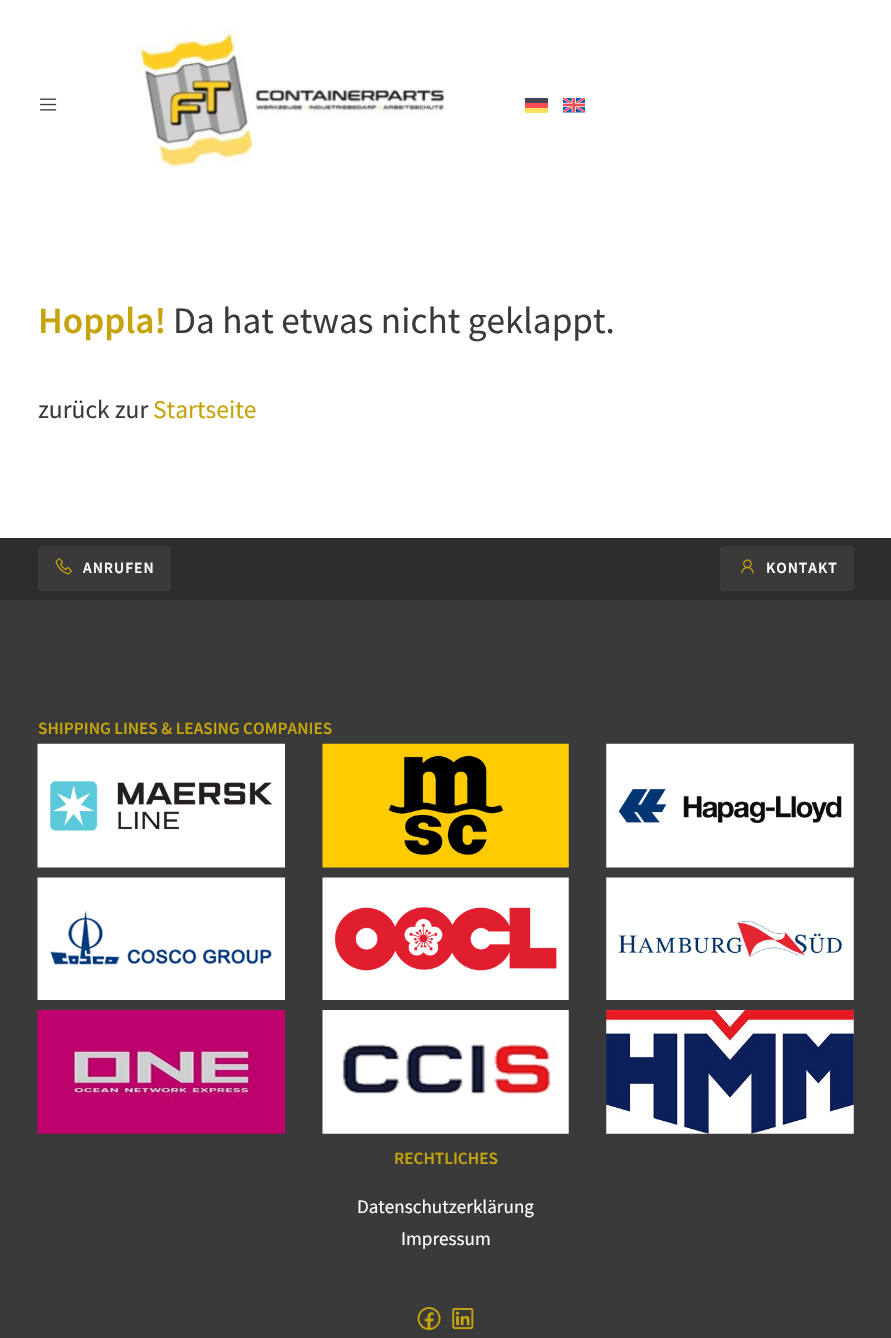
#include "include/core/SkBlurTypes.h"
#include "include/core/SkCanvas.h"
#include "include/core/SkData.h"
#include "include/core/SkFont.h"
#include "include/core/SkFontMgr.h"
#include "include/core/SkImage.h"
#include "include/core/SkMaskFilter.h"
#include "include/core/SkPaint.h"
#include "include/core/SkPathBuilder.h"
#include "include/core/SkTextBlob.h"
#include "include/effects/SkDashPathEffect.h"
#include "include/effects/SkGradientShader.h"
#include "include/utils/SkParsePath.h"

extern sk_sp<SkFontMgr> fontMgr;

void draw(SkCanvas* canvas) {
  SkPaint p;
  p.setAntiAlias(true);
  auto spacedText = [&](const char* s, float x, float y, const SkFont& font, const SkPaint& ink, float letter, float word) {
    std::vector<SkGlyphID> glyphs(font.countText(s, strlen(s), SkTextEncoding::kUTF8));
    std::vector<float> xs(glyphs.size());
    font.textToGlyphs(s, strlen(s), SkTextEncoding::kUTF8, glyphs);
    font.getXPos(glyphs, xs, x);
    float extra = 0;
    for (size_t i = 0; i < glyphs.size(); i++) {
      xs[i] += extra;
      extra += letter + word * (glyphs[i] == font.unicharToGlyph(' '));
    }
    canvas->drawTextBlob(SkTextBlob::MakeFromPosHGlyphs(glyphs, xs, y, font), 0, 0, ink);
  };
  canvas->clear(SK_ColorWHITE);
  canvas->drawImageRect(SkImages::DeferredFromEncodedData(SkData::MakeFromFileName("images/1.png")), SkRect::MakeLTRB(40, 98, 57, 111), SkSamplingOptions());
  canvas->drawImageRect(SkImages::DeferredFromEncodedData(SkData::MakeFromFileName("images/2.png")), SkRect::MakeLTRB(136, 29, 445, 169), SkSamplingOptions());
  p.setColor(SkColorSetRGB(255, 75, 85));
  canvas->drawRect(SkRect::MakeLTRB(525, 103, 548, 108), p);
  p.setColor(SkColorSetRGB(255, 225, 90));
  canvas->drawRect(SkRect::MakeLTRB(525, 108, 548, 113), p);
  p.setColor(SkColorSetRGB(70, 70, 85));
  canvas->drawRect(SkRect::MakeLTRB(525, 98, 548, 103), p);
  canvas->drawImageRect(SkImages::DeferredFromEncodedData(SkData::MakeFromFileName("images/3.png")), SkRect::MakeLTRB(563, 98, 585, 113), SkSamplingOptions());
  p.setColor(SkColorSetRGB(45, 45, 45));
  canvas->drawRect(SkRect::MakeLTRB(0, 538, 891, 600), p);
  p.setColor(SkColorSetRGB(58, 58, 58));
  canvas->drawRoundRect(SkRect::MakeLTRB(38, 546, 171, 591), 4, 4, p);
  canvas->drawImageRect(SkImages::DeferredFromEncodedData(SkData::MakeFromFileName("images/4.png")), SkRect::MakeLTRB(55, 558, 72, 575), SkSamplingOptions());
  canvas->drawRoundRect(SkRect::MakeLTRB(720, 546, 854, 591), 4, 4, p);
  canvas->drawImageRect(SkImages::DeferredFromEncodedData(SkData::MakeFromFileName("images/5.png")), SkRect::MakeLTRB(741, 559, 754, 574), SkSamplingOptions());
  canvas->drawRect(SkRect::MakeLTRB(0, 600, 891, 1338), p);
  canvas->drawImageRect(SkImages::DeferredFromEncodedData(SkData::MakeFromFileName("images/6.png")), SkRect::MakeLTRB(37, 743, 285, 868), SkSamplingOptions());
  canvas->drawImageRect(SkImages::DeferredFromEncodedData(SkData::MakeFromFileName("images/7.png")), SkRect::MakeLTRB(322, 743, 569, 868), SkSamplingOptions());
  canvas->drawImageRect(SkImages::DeferredFromEncodedData(SkData::MakeFromFileName("images/8.png")), SkRect::MakeLTRB(606, 743, 854, 868), SkSamplingOptions());
  canvas->drawImageRect(SkImages::DeferredFromEncodedData(SkData::MakeFromFileName("images/9.png")), SkRect::MakeLTRB(37, 877, 285, 1000), SkSamplingOptions());
  canvas->drawImageRect(SkImages::DeferredFromEncodedData(SkData::MakeFromFileName("images/10.png")), SkRect::MakeLTRB(322, 877, 569, 1000), SkSamplingOptions());
  canvas->drawImageRect(SkImages::DeferredFromEncodedData(SkData::MakeFromFileName("images/11.png")), SkRect::MakeLTRB(606, 877, 854, 1000), SkSamplingOptions());
  canvas->drawImageRect(SkImages::DeferredFromEncodedData(SkData::MakeFromFileName("images/12.png")), SkRect::MakeLTRB(37, 1010, 285, 1134), SkSamplingOptions());
  canvas->drawImageRect(SkImages::DeferredFromEncodedData(SkData::MakeFromFileName("images/13.png")), SkRect::MakeLTRB(322, 1010, 569, 1134), SkSamplingOptions());
  canvas->drawImageRect(SkImages::DeferredFromEncodedData(SkData::MakeFromFileName("images/14.png")), SkRect::MakeLTRB(606, 1010, 854, 1134), SkSamplingOptions());
  canvas->drawImageRect(SkImages::DeferredFromEncodedData(SkData::MakeFromFileName("images/15.png")), SkRect::MakeLTRB(417, 1307, 441, 1330), SkSamplingOptions());
  canvas->drawImageRect(SkImages::DeferredFromEncodedData(SkData::MakeFromFileName("images/16.png")), SkRect::MakeLTRB(452, 1308, 474, 1330), SkSamplingOptions());
  SkFont font1(fontMgr->matchFamilyStyle("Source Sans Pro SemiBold", SkFontStyle(600, SkFontStyle::kNormal_Width, SkFontStyle::kUpright_Slant)), 37.25f);
  font1.setSubpixel(true);
  p.setColor(SkColorSetRGB(197, 163, 11));
  canvas->drawString("Hoppla!", 38, 333, font1, p);
  SkFont font2(fontMgr->matchFamilyStyle("Source Sans Pro", SkFontStyle::Normal()), 37.25f);
  font2.setSubpixel(true);
  p.setColor(SkColorSetRGB(58, 58, 58));
  canvas->drawString("Da hat etwas nicht geklappt.", 173, 333, font2, p);
  SkFont font3(fontMgr->matchFamilyStyle("Source Sans Pro", SkFontStyle::Normal()), 25.5f);
  font3.setSubpixel(true);
  canvas->drawString("zurück zur", 38, 418, font3, p);
  p.setColor(SkColorSetRGB(197, 163, 11));
  canvas->drawString("Startseite", 153, 418, font3, p);
  SkFont font4(fontMgr->matchFamilyStyle("Source Sans Pro SemiBold", SkFontStyle(600, SkFontStyle::kNormal_Width, SkFontStyle::kUpright_Slant)), 15.5f);
  font4.setSubpixel(true);
  p.setColor(SK_ColorWHITE);
  spacedText("ANRUFEN", 83, 573, font4, p, 1, 0);
  spacedText("KONTAKT", 766, 573, font4, p, 1, 0);
  SkFont font5(fontMgr->matchFamilyStyle("Source Sans Pro SemiBold", SkFontStyle(600, SkFontStyle::kNormal_Width, SkFontStyle::kUpright_Slant)), 17.25f);
  font5.setSubpixel(true);
  p.setColor(SkColorSetRGB(197, 163, 11));
  canvas->drawString("SHIPPING LINES & LEASING COMPANIES", 38, 734, font5, p);
  canvas->drawString("RECHTLICHES", 394, 1164, font5, p);
  SkFont font6(fontMgr->matchFamilyStyle("Source Sans Pro", SkFontStyle::Normal()), 19.1f);
  font6.setSubpixel(true);
  p.setColor(SK_ColorWHITE);
  canvas->drawString("Datenschutzerklärung", 357, 1213, font6, p);
  canvas->drawString("Impressum", 401, 1245, font6, p);
}
